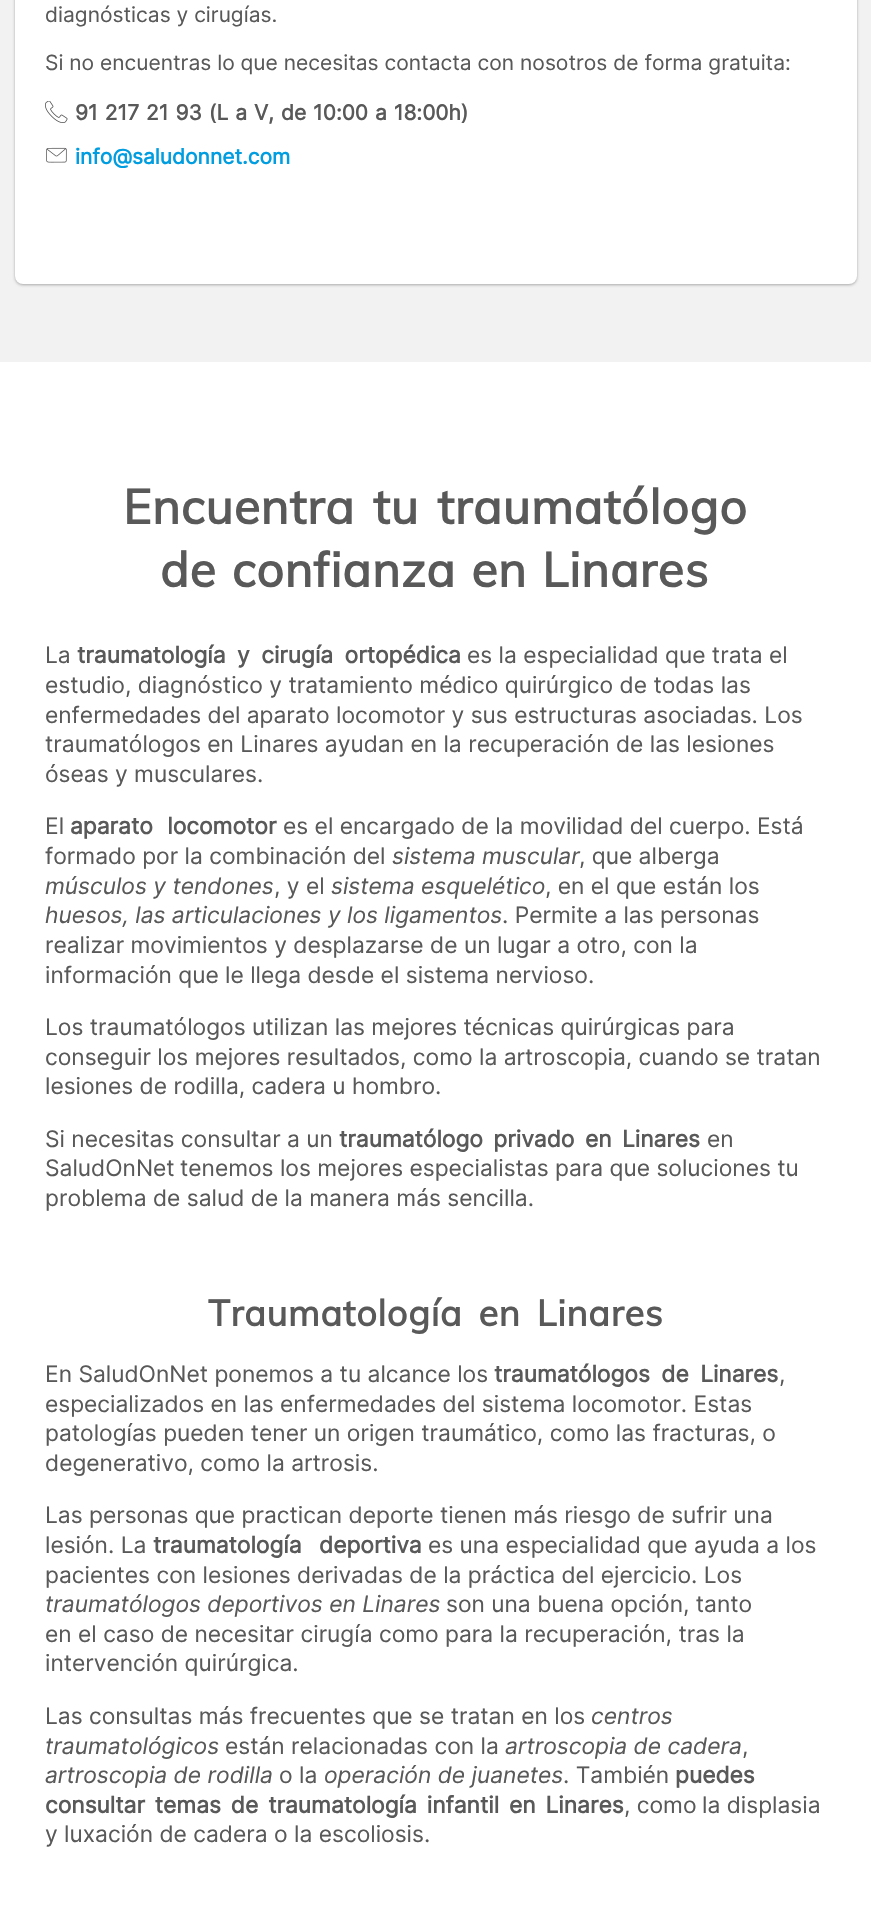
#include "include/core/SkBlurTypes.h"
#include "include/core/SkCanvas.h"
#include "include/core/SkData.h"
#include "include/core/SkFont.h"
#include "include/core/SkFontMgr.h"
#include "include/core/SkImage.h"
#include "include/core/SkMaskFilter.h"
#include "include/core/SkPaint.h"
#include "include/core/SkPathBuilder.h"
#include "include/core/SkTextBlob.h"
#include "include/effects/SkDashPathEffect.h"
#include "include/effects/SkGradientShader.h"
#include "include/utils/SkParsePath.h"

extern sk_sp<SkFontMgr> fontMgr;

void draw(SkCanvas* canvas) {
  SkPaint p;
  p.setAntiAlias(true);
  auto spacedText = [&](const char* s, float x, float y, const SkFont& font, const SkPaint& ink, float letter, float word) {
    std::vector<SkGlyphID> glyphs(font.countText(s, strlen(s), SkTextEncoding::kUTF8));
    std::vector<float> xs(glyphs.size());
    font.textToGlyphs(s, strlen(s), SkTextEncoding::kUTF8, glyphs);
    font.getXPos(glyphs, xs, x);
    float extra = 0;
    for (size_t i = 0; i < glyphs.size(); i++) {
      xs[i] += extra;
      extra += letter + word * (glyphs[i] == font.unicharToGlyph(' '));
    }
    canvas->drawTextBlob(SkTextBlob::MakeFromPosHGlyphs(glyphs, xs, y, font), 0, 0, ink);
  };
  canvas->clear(SkColorSetRGB(242, 242, 242));
  p.setColor(SkColorSetARGB(77, 0, 0, 0));
  p.setMaskFilter(SkMaskFilter::MakeBlur(kNormal_SkBlurStyle, 1.5f));
  canvas->drawRoundRect(SkRect::MakeLTRB(15, -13, 857, 285), 8, 8, p);
  p.setMaskFilter(nullptr);
  p.setColor(SK_ColorWHITE);
  canvas->drawRoundRect(SkRect::MakeLTRB(15, -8, 857, 284), 8, 8, p);
  canvas->drawImageRect(SkImages::DeferredFromEncodedData(SkData::MakeFromFileName("images/1.png")), SkRect::MakeLTRB(45, 101, 68, 123), SkSamplingOptions());
  canvas->drawImageRect(SkImages::DeferredFromEncodedData(SkData::MakeFromFileName("images/2.png")), SkRect::MakeLTRB(46, 147, 67, 163), SkSamplingOptions());
  canvas->drawRect(SkRect::MakeLTRB(0, 362, 871, 1915), p);
  SkFont font1(fontMgr->matchFamilyStyle("Inter", SkFontStyle::Normal()), 21);
  font1.setSubpixel(true);
  p.setColor(SkColorSetRGB(89, 89, 89));
  canvas->drawString("diagnósticas y cirugías.", 45, 22, font1, p);
  canvas->drawString("Si no encuentras lo que necesitas contacta con nosotros de forma gratuita:", 45, 70, font1, p);
  SkFont font2(fontMgr->matchFamilyStyle("Inter", SkFontStyle::Bold()), 21);
  font2.setSubpixel(true);
  spacedText("91 217 21 93 (L a V, de 10:00 a 18:00h)", 75, 120, font2, p, 0, 1);
  p.setColor(SkColorSetRGB(0, 157, 224));
  canvas->drawString("info@saludonnet.com", 75, 164, font2, p);
  SkFont font3(fontMgr->matchFamilyStyle("Mulish", SkFontStyle::Bold()), 48);
  font3.setSubpixel(true);
  p.setColor(SkColorSetRGB(89, 89, 89));
  spacedText("Encuentra tu traumatólogo", 123, 524, font3, p, 0.75f, 5);
  spacedText("de confianza en", 160, 587, font3, p, 0.75f, 2);
  spacedText("Linares", 542, 587, font3, p, 0.75f, 0);
  SkFont font4(fontMgr->matchFamilyStyle("Inter", SkFontStyle::Normal()), 22.8f);
  font4.setSubpixel(true);
  canvas->drawString("La", 45, 663, font4, p);
  SkFont font5(fontMgr->matchFamilyStyle("Inter", SkFontStyle::Bold()), 22.8f);
  font5.setSubpixel(true);
  spacedText("traumatología y cirugía ortopédica", 77, 663, font5, p, 0, 5);
  canvas->drawString("es la especialidad que trata el", 467, 663, font4, p);
  canvas->drawString("estudio, diagnóstico y tratamiento médico quirúrgico de todas las", 45, 693, font4, p);
  canvas->drawString("enfermedades del aparato locomotor y sus estructuras asociadas. Los", 45, 723, font4, p);
  canvas->drawString("traumatólogos en Linares ayudan en la recuperación de las lesiones", 45, 752, font4, p);
  canvas->drawString("óseas y musculares.", 45, 782, font4, p);
  canvas->drawString("El", 45, 834, font4, p);
  spacedText("aparato locomotor", 70, 834, font5, p, 0, 8);
  canvas->drawString("es el encargado de la movilidad del cuerpo. Está", 283, 834, font4, p);
  canvas->drawString("formado por la combinación del", 45, 864, font4, p);
  SkFont font6(fontMgr->matchFamilyStyle("Inter", SkFontStyle::Italic()), 22.8f);
  font6.setSubpixel(true);
  canvas->drawString("sistema muscular", 392, 864, font6, p);
  canvas->drawString(", que alberga", 579, 864, font4, p);
  canvas->drawString("músculos y tendones", 45, 894, font6, p);
  canvas->drawString(", y el", 274, 894, font4, p);
  canvas->drawString("sistema esquelético", 331, 894, font6, p);
  canvas->drawString(", en el que están los", 545, 894, font4, p);
  canvas->drawString("huesos, las articulaciones y los ligamentos", 45, 923, font6, p);
  canvas->drawString(". Permite a las personas", 502, 923, font4, p);
  canvas->drawString("realizar movimientos y desplazarse de un lugar a otro, con la", 45, 953, font4, p);
  canvas->drawString("información que le llega desde el sistema nervioso.", 45, 983, font4, p);
  canvas->drawString("Los traumatólogos utilizan las mejores técnicas quirúrgicas para", 45, 1035, font4, p);
  canvas->drawString("conseguir los mejores resultados, como la artroscopia, cuando se tratan", 45, 1065, font4, p);
  canvas->drawString("lesiones de rodilla, cadera u hombro.", 45, 1094, font4, p);
  canvas->drawString("Si necesitas consultar a un", 45, 1147, font4, p);
  spacedText("traumatólogo privado en Linares", 339, 1147, font5, p, 0, 4);
  canvas->drawString("en", 707, 1147, font4, p);
  canvas->drawString("SaludOnNet", 45, 1176, font4, p);
  canvas->drawString("tenemos los mejores especialistas para que soluciones tu", 180, 1176, font4, p);
  canvas->drawString("problema de salud de la manera más sencilla.", 45, 1206, font4, p);
  SkFont font7(fontMgr->matchFamilyStyle("Mulish", SkFontStyle::Bold()), 36);
  font7.setSubpixel(true);
  spacedText("Traumatología en Linares", 208, 1326, font7, p, 0.75f, 6);
  canvas->drawString("En SaludOnNet ponemos a tu alcance los", 45, 1382, font4, p);
  spacedText("traumatólogos de Linares", 494, 1382, font5, p, 0, 5);
  canvas->drawString(",", 779, 1382, font4, p);
  canvas->drawString("especializados en las enfermedades del sistema locomotor. Estas", 45, 1412, font4, p);
  canvas->drawString("patologías pueden tener un origen traumático, como las fracturas, o", 45, 1441, font4, p);
  canvas->drawString("degenerativo, como la artrosis.", 45, 1471, font4, p);
  canvas->drawString("Las personas que practican deporte tienen más riesgo de sufrir una", 45, 1523, font4, p);
  canvas->drawString("lesión. La", 45, 1553, font4, p);
  spacedText("traumatología deportiva", 153, 1553, font5, p, 0, 11);
  canvas->drawString("es una especialidad que ayuda a los", 428, 1553, font4, p);
  canvas->drawString("pacientes con lesiones derivadas de la práctica del ejercicio. Los", 45, 1583, font4, p);
  canvas->drawString("traumatólogos deportivos en Linares", 45, 1612, font6, p);
  canvas->drawString("son una buena opción, tanto", 446, 1612, font4, p);
  canvas->drawString("en el caso de necesitar cirugía como para la recuperación, tras la", 45, 1642, font4, p);
  canvas->drawString("intervención quirúrgica.", 45, 1671, font4, p);
  canvas->drawString("Las consultas más frecuentes que se tratan en los", 45, 1724, font4, p);
  canvas->drawString("centros", 591, 1724, font6, p);
  canvas->drawString("traumatológicos", 45, 1754, font6, p);
  canvas->drawString("están relacionadas con la", 225, 1754, font4, p);
  canvas->drawString("artroscopia de cadera", 505, 1754, font6, p);
  canvas->drawString(",", 742, 1754, font4, p);
  canvas->drawString("artroscopia de rodilla", 45, 1783, font6, p);
  canvas->drawString("o la", 279, 1783, font4, p);
  canvas->drawString("operación de juanetes", 324, 1783, font6, p);
  canvas->drawString(". También", 563, 1783, font4, p);
  canvas->drawString("puedes", 675, 1783, font5, p);
  spacedText("consultar temas de traumatología infantil en Linares", 45, 1813, font5, p, 0, 3.5f);
  canvas->drawString(", como", 624, 1813, font4, p);
  canvas->drawString("la displasia", 702, 1813, font4, p);
  canvas->drawString("y luxación de cadera o la escoliosis.", 45, 1842, font4, p);
}
